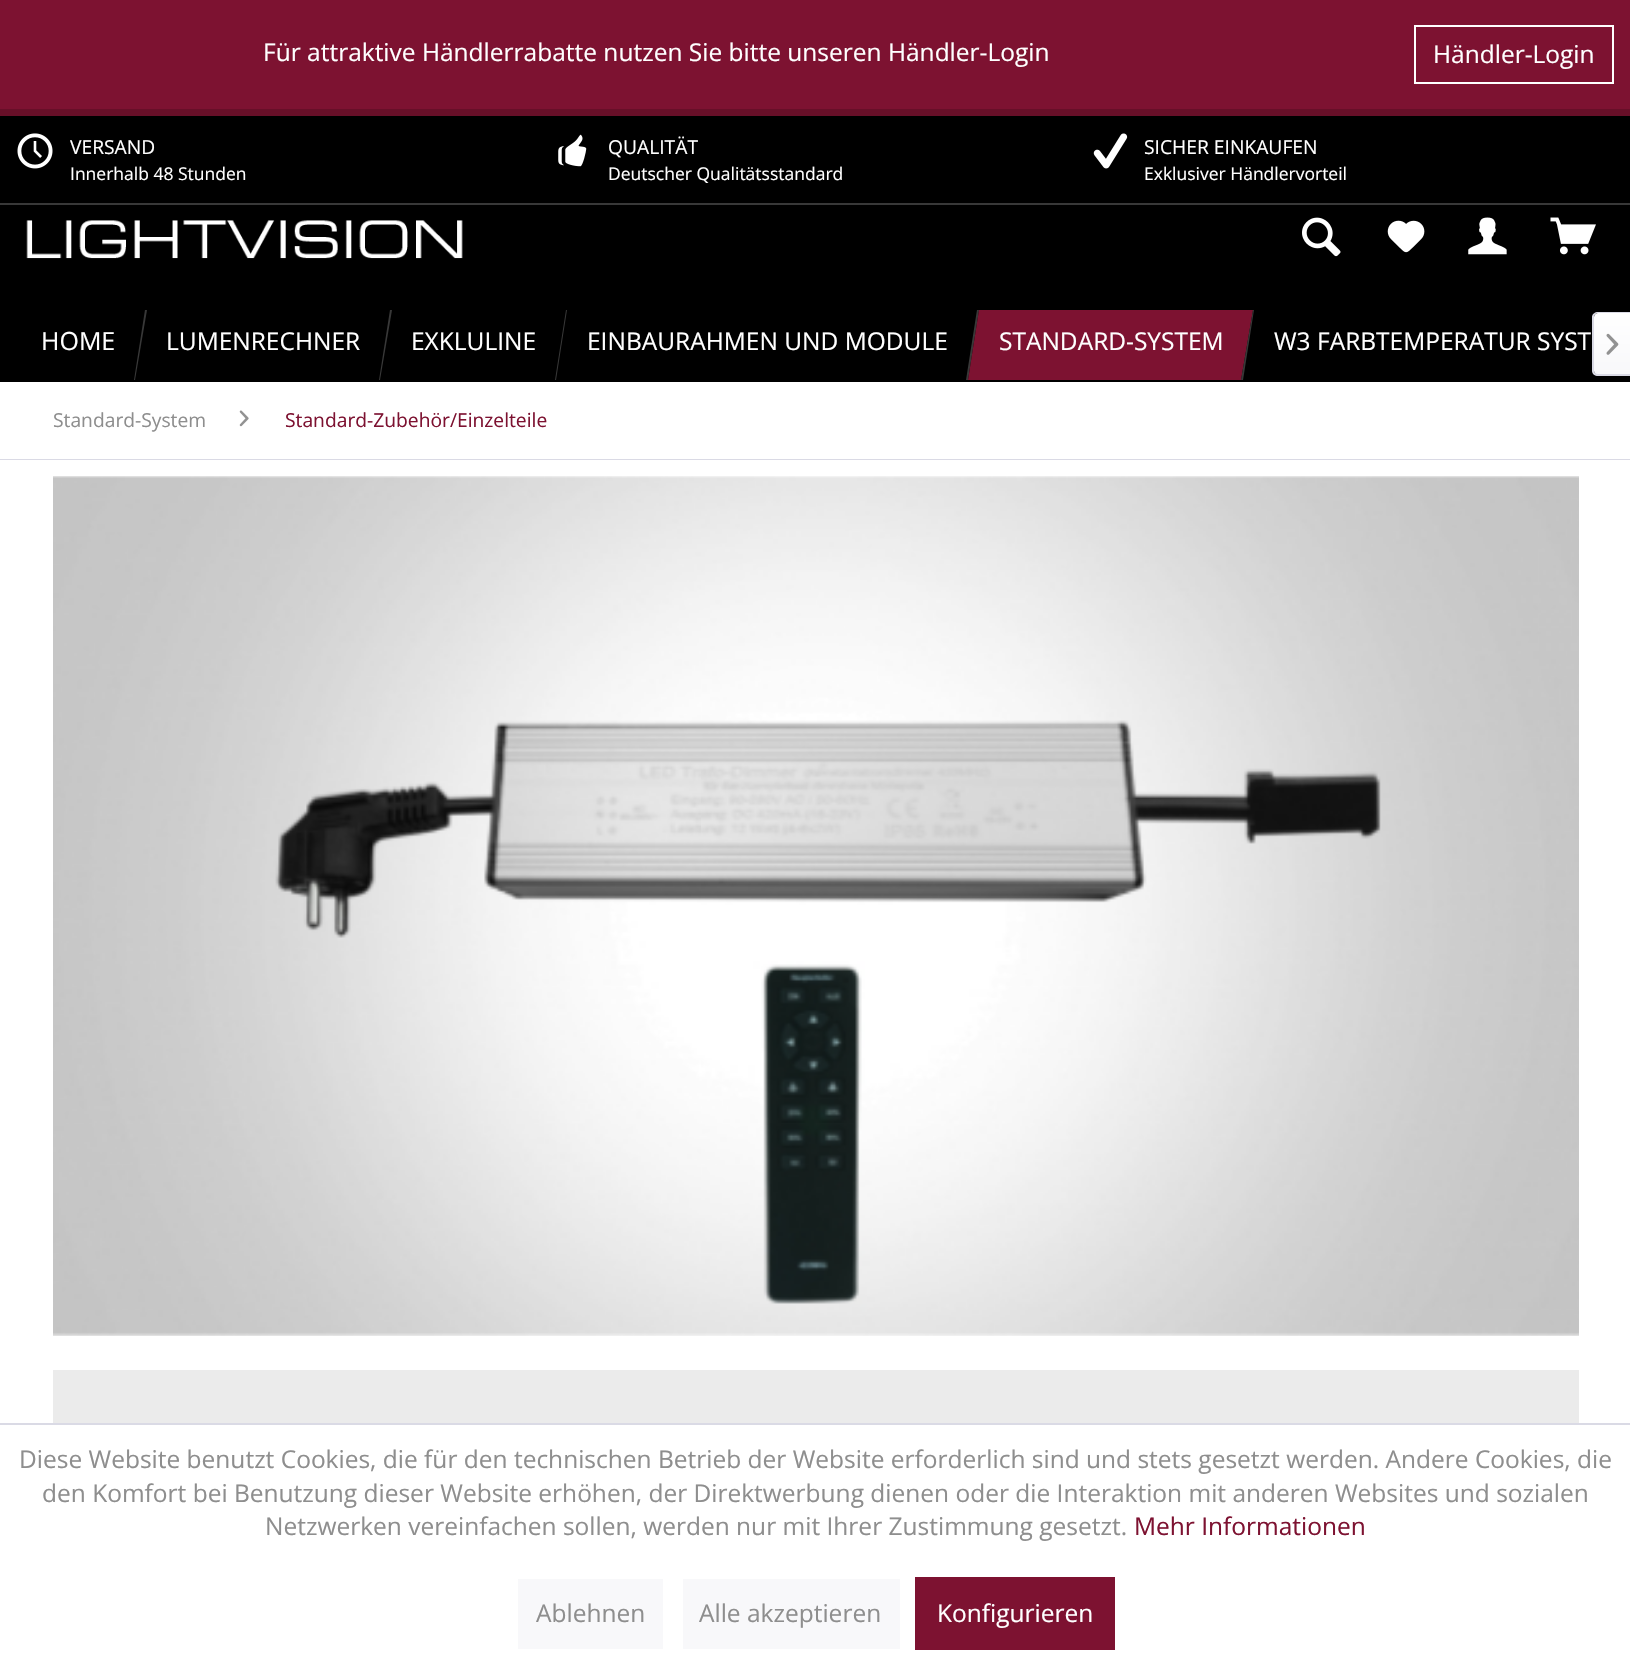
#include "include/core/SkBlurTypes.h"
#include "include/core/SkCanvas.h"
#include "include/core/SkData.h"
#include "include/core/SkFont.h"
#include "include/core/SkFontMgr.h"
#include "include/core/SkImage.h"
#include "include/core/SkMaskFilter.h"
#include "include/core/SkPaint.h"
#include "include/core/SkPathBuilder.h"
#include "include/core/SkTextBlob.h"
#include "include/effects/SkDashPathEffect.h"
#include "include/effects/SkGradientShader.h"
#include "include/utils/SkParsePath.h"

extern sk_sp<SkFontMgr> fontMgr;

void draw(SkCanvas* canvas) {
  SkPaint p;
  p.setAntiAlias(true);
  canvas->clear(SK_ColorWHITE);
  p.setColor(SK_ColorBLACK);
  canvas->drawRect(SkRect::MakeLTRB(0, 116, 1630, 382), p);
  p.setColor(SkColorSetRGB(125, 18, 49));
  canvas->drawRect(SkRect::MakeLTRB(0, 0, 1630, 109), p);
  p.setColor(SkColorSetRGB(103, 15, 40));
  canvas->drawRect(SkRect::MakeLTRB(0, 109, 1630, 116), p);
  p.setStyle(SkPaint::kStroke_Style);
  p.setStrokeWidth(2);
  p.setColor(SK_ColorWHITE);
  canvas->drawRect(SkRect::MakeLTRB(1415, 26, 1613, 83), p);
  p.setStyle(SkPaint::kFill_Style);
  p.setColor(SkColorSetRGB(56, 56, 56));
  canvas->drawRect(SkRect::MakeLTRB(0, 203, 1630, 205), p);
  canvas->drawImageRect(SkImages::DeferredFromEncodedData(SkData::MakeFromFileName("images/1.png")), SkRect::MakeLTRB(17, 133, 53, 169), SkSamplingOptions());
  canvas->drawImageRect(SkImages::DeferredFromEncodedData(SkData::MakeFromFileName("images/2.png")), SkRect::MakeLTRB(558, 134, 587, 167), SkSamplingOptions());
  canvas->drawImageRect(SkImages::DeferredFromEncodedData(SkData::MakeFromFileName("images/3.png")), SkRect::MakeLTRB(1093, 133, 1128, 169), SkSamplingOptions());
  canvas->drawImageRect(SkImages::DeferredFromEncodedData(SkData::MakeFromFileName("images/4.png")), SkRect::MakeLTRB(26, 220, 463, 259), SkSamplingOptions());
  canvas->drawImageRect(SkImages::DeferredFromEncodedData(SkData::MakeFromFileName("images/5.png")), SkRect::MakeLTRB(1302, 217, 1341, 257), SkSamplingOptions());
  canvas->drawImageRect(SkImages::DeferredFromEncodedData(SkData::MakeFromFileName("images/6.png")), SkRect::MakeLTRB(1387, 220, 1425, 253), SkSamplingOptions());
  canvas->drawImageRect(SkImages::DeferredFromEncodedData(SkData::MakeFromFileName("images/7.png")), SkRect::MakeLTRB(1468, 217, 1507, 255), SkSamplingOptions());
  canvas->drawImageRect(SkImages::DeferredFromEncodedData(SkData::MakeFromFileName("images/8.png")), SkRect::MakeLTRB(1550, 217, 1596, 255), SkSamplingOptions());
  canvas->drawPath(SkPathBuilder().moveTo(145, 310).lineTo(147, 310).lineTo(135, 380).lineTo(134, 380).close().detach(), p);
  canvas->drawPath(SkPathBuilder().moveTo(390, 310).lineTo(392, 310).lineTo(380, 380).lineTo(379, 380).close().detach(), p);
  canvas->drawPath(SkPathBuilder().moveTo(566, 310).lineTo(567, 310).lineTo(556, 380).lineTo(555, 380).close().detach(), p);
  canvas->drawPath(SkPathBuilder().moveTo(977, 310).lineTo(979, 310).lineTo(968, 380).lineTo(966, 380).close().detach(), p);
  p.setColor(SkColorSetRGB(125, 18, 49));
  canvas->drawPath(SkPathBuilder().moveTo(979, 310).lineTo(1253, 310).lineTo(1241, 380).lineTo(968, 380).close().detach(), p);
  p.setColor(SkColorSetRGB(56, 56, 56));
  canvas->drawPath(SkPathBuilder().moveTo(1253, 310).lineTo(1254, 310).lineTo(1243, 380).lineTo(1241, 380).close().detach(), p);
  {
    const SkColor colors[] = {SK_ColorWHITE, SkColorSetRGB(248, 248, 250)};
    const float stops[] = {0, 1};
    const SkPoint ends[] = {{1613, 313}, {1613, 375}};
    p.setShader(SkGradientShader::MakeLinear(ends, colors, stops, 2, SkTileMode::kClamp));
    p.setAlpha(255);
  }
  canvas->drawPath(SkPathBuilder().moveTo(1598, 313).lineTo(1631, 313).lineTo(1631, 375).lineTo(1598, 375).cubicTo(1596, 375, 1594, 373, 1594, 371).lineTo(1594, 317).cubicTo(1594, 315, 1596, 313, 1598, 313).close().detach(), p);
  p.setShader(nullptr);
  p.setColor(SkColorSetRGB(218, 218, 229));
  canvas->drawPath(SkPathBuilder(SkPathFillType::kEvenOdd).moveTo(1598, 312).lineTo(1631, 312).lineTo(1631, 376).lineTo(1598, 376).cubicTo(1595, 376, 1592, 374, 1592, 371).lineTo(1592, 317).cubicTo(1592, 314, 1595, 312, 1598, 312).close().moveTo(1598, 313).lineTo(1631, 313).lineTo(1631, 374).lineTo(1598, 374).cubicTo(1596, 374, 1594, 373, 1594, 371).lineTo(1594, 317).cubicTo(1594, 315, 1596, 313, 1598, 313).close().detach(), p);
  canvas->drawImageRect(SkImages::DeferredFromEncodedData(SkData::MakeFromFileName("images/9.png")), SkRect::MakeLTRB(1606, 333, 1619, 355), SkSamplingOptions());
  canvas->drawRect(SkRect::MakeLTRB(0, 459, 1630, 460), p);
  canvas->drawImageRect(SkImages::DeferredFromEncodedData(SkData::MakeFromFileName("images/10.png")), SkRect::MakeLTRB(239, 410, 249, 427), SkSamplingOptions());
  canvas->drawImageRect(SkImages::DeferredFromEncodedData(SkData::MakeFromFileName("images/11.png")), SkRect::MakeLTRB(53, 476, 1579, 1336), SkSamplingOptions());
  p.setColor(SkColorSetRGB(235, 235, 235));
  canvas->drawRect(SkRect::MakeLTRB(53, 1370, 1579, 1423), p);
  p.setColor(SkColorSetRGB(218, 218, 229));
  canvas->drawRect(SkRect::MakeLTRB(0, 1423, 1630, 1425), p);
  p.setColor(SkColorSetRGB(248, 248, 250));
  canvas->drawRect(SkRect::MakeLTRB(518, 1579, 663, 1649), p);
  canvas->drawRect(SkRect::MakeLTRB(683, 1579, 900, 1649), p);
  p.setColor(SkColorSetRGB(125, 18, 49));
  canvas->drawRect(SkRect::MakeLTRB(915, 1577, 1115, 1650), p);
  SkFont font1(fontMgr->matchFamilyStyle("Open Sans", SkFontStyle::Normal()), 24.5f);
  font1.setSubpixel(true);
  p.setColor(SK_ColorWHITE);
  canvas->drawString("Für attraktive Händlerrabatte nutzen Sie bitte unseren Händler-Login", 263, 61, font1, p);
  canvas->drawString("Händler-Login", 1433, 63, font1, p);
  SkFont font2(fontMgr->matchFamilyStyle("Open Sans", SkFontStyle::Normal()), 19.25f);
  font2.setSubpixel(true);
  canvas->drawString("VERSAND", 70, 154, font2, p);
  SkFont font3(fontMgr->matchFamilyStyle("Open Sans", SkFontStyle::Normal()), 17.5f);
  font3.setSubpixel(true);
  canvas->drawString("Innerhalb 48 Stunden", 70, 180, font3, p);
  canvas->drawString("QUALITÄT", 608, 154, font2, p);
  canvas->drawString("Deutscher Qualitätsstandard", 608, 180, font3, p);
  canvas->drawString("SICHER EINKAUFEN", 1144, 154, font2, p);
  canvas->drawString("Exklusiver Händlervorteil", 1144, 180, font3, p);
  SkFont font4(fontMgr->matchFamilyStyle("Open Sans", SkFontStyle::Normal()), 25);
  font4.setSubpixel(true);
  canvas->drawString("HOME", 41, 350, font4, p);
  canvas->drawString("LUMENRECHNER", 166, 350, font1, p);
  canvas->drawString("EXKLULINE", 411, 350, font1, p);
  canvas->drawString("EINBAURAHMEN UND MODULE", 587, 350, font1, p);
  canvas->drawString("STANDARD-SYSTEM", 999, 350, font1, p);
  canvas->drawString("W3 FARBTEMPERATUR SYST", 1274, 350, font1, p);
  p.setColor(SkColorSetRGB(142, 142, 142));
  canvas->drawString("Standard-System", 53, 427, font2, p);
  p.setColor(SkColorSetRGB(125, 18, 49));
  canvas->drawString("Standard-Zubehör/Einzelteile", 285, 427, font2, p);
  p.setColor(SkColorSetRGB(142, 142, 142));
  canvas->drawString("Diese Website benutzt Cookies, die für den technischen Betrieb der Website erforderlich sind und stets gesetzt werden. Andere Cookies, die", 19, 1468, font1, p);
  canvas->drawString("den Komfort bei Benutzung dieser Website erhöhen, der Direktwerbung dienen oder die Interaktion mit anderen Websites und sozialen", 42, 1502, font1, p);
  canvas->drawString("Netzwerken vereinfachen sollen, werden nur mit Ihrer Zustimmung gesetzt.", 265, 1535, font1, p);
  p.setColor(SkColorSetRGB(125, 18, 49));
  canvas->drawString("Mehr Informationen", 1134, 1535, font1, p);
  p.setColor(SkColorSetRGB(142, 142, 142));
  canvas->drawString("Ablehnen", 536, 1622, font1, p);
  canvas->drawString("Alle akzeptieren", 699, 1622, font1, p);
  p.setColor(SK_ColorWHITE);
  canvas->drawString("Konfigurieren", 937, 1622, font1, p);
}
